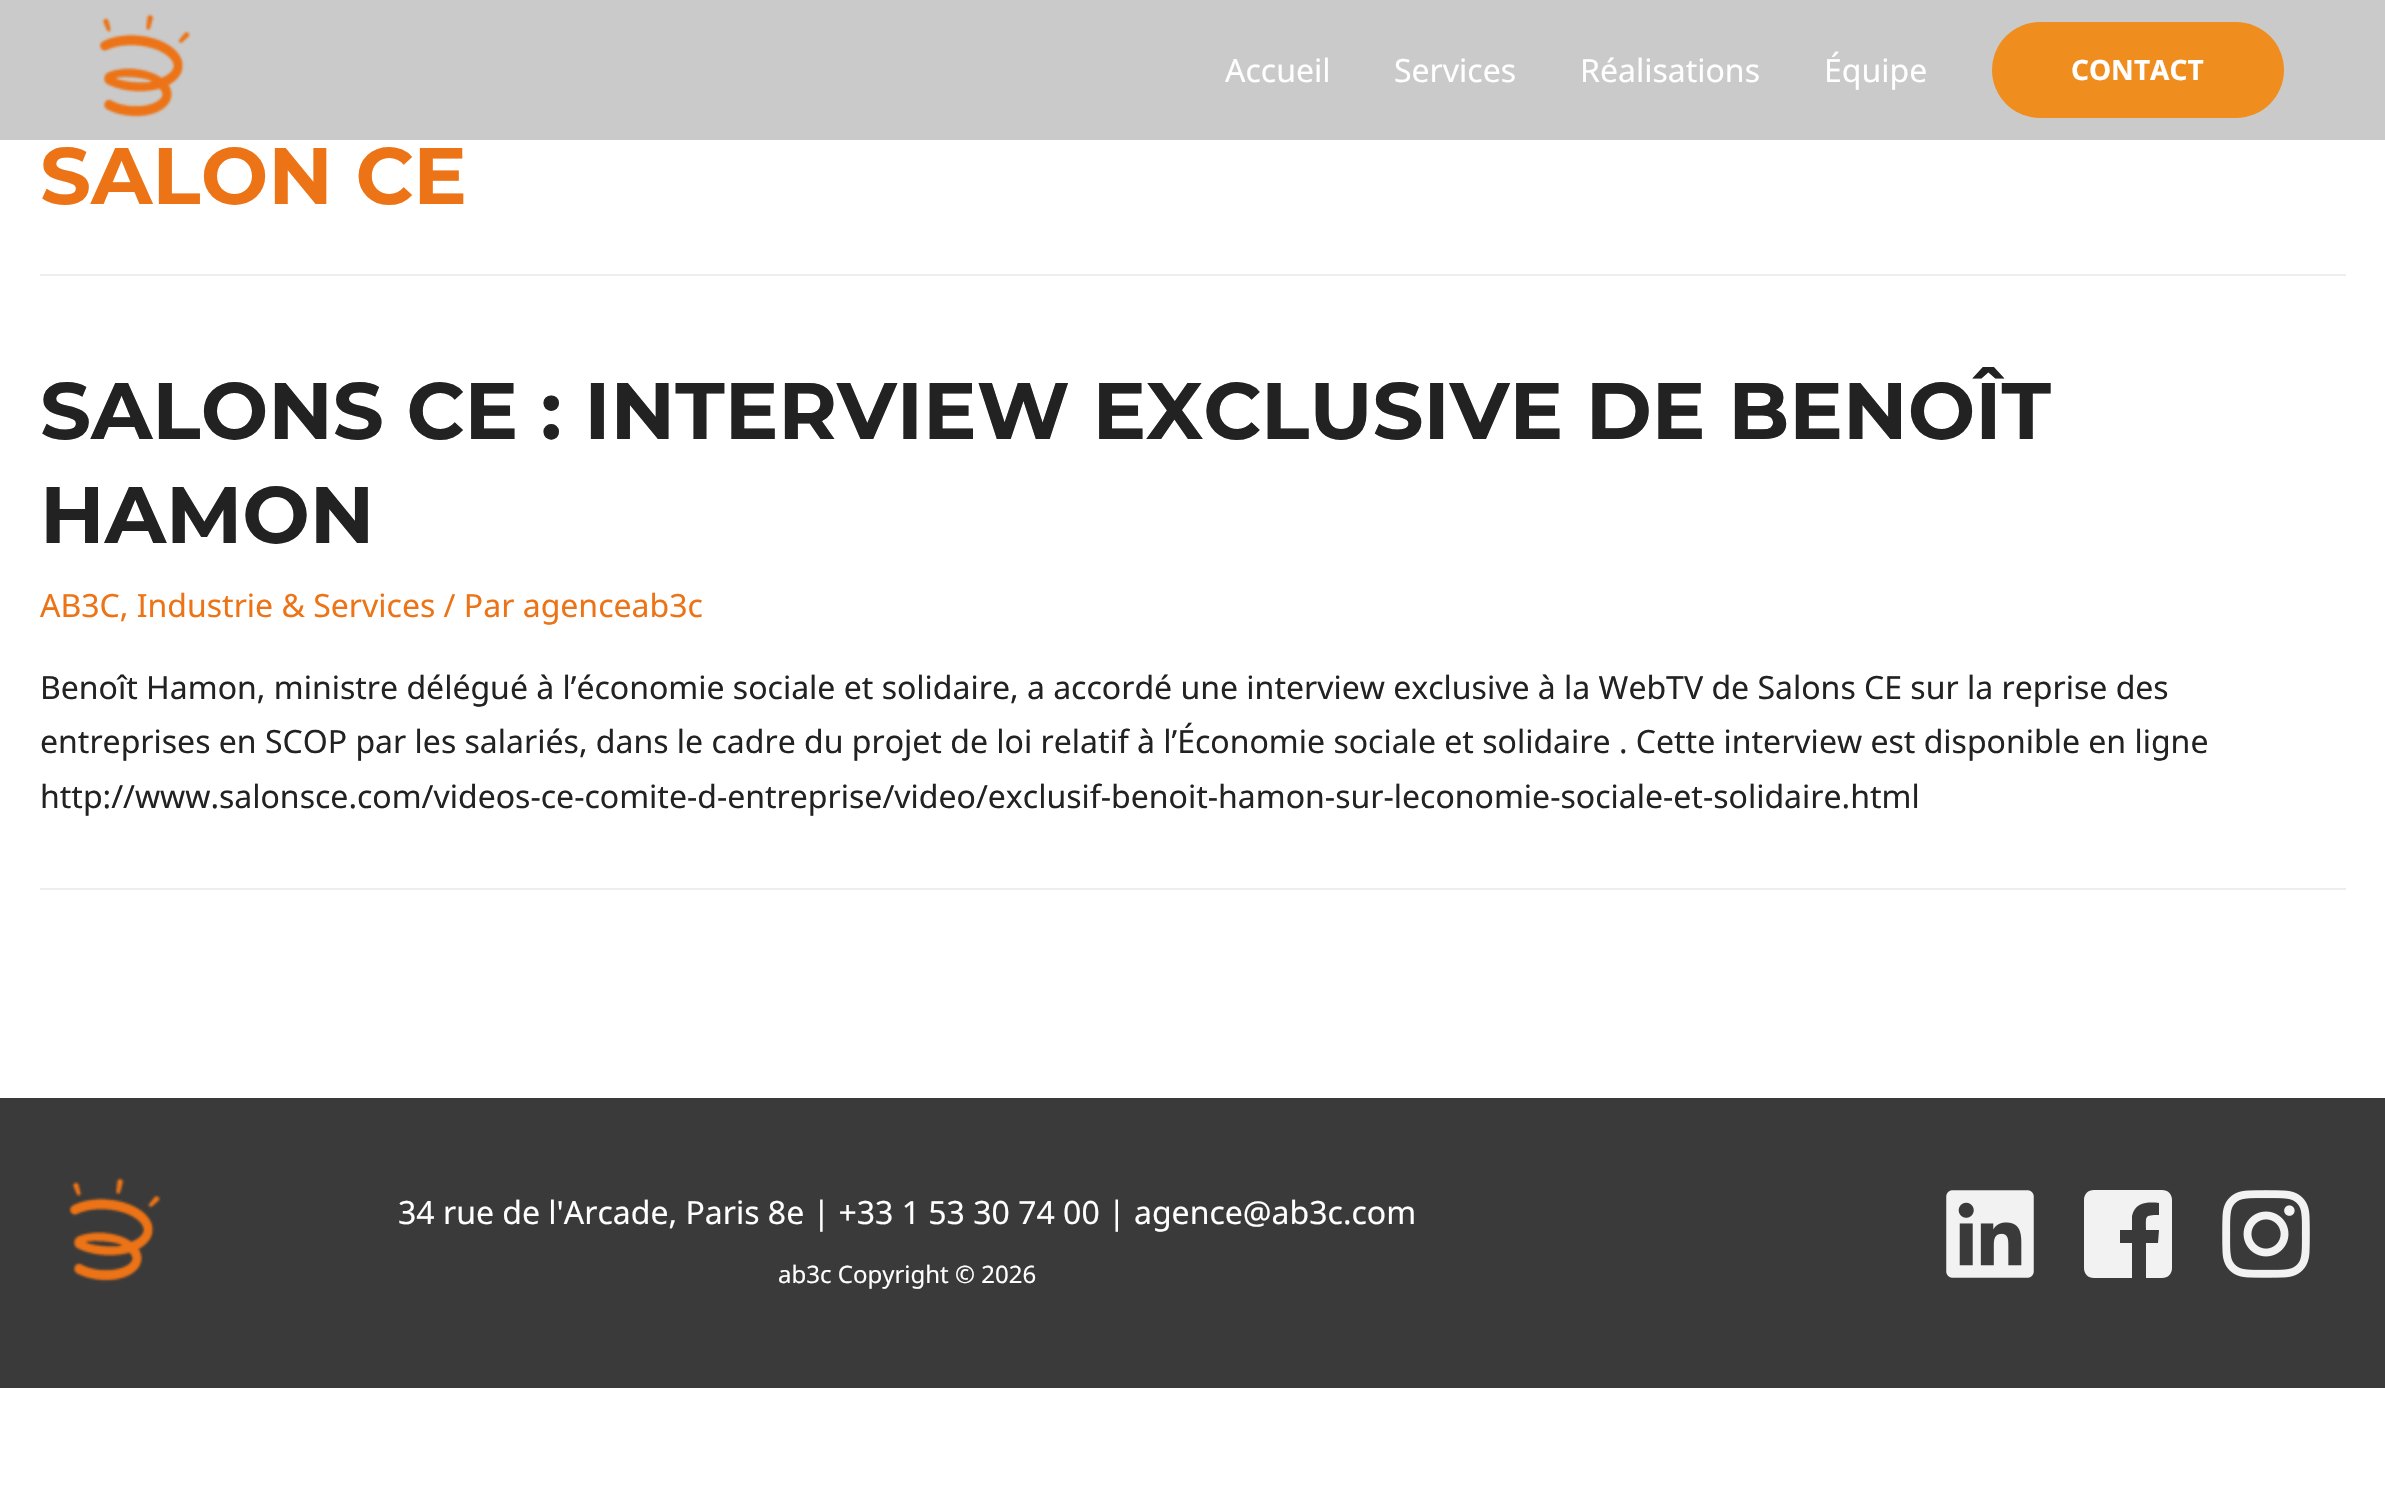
#include "include/core/SkBlurTypes.h"
#include "include/core/SkCanvas.h"
#include "include/core/SkData.h"
#include "include/core/SkFont.h"
#include "include/core/SkFontMgr.h"
#include "include/core/SkImage.h"
#include "include/core/SkMaskFilter.h"
#include "include/core/SkPaint.h"
#include "include/core/SkPathBuilder.h"
#include "include/core/SkTextBlob.h"
#include "include/effects/SkDashPathEffect.h"
#include "include/effects/SkGradientShader.h"
#include "include/utils/SkParsePath.h"

extern sk_sp<SkFontMgr> fontMgr;

void draw(SkCanvas* canvas) {
  SkPaint p;
  p.setAntiAlias(true);
  canvas->clear(SK_ColorWHITE);
  p.setColor(SkColorSetRGB(202, 202, 202));
  canvas->drawRect(SkRect::MakeLTRB(0, 0, 2385, 140), p);
  canvas->drawImageRect(SkImages::DeferredFromEncodedData(SkData::MakeFromFileName("images/1.png")), SkRect::MakeLTRB(98, 13, 191, 119), SkSamplingOptions());
  p.setColor(SkColorSetRGB(239, 142, 31));
  canvas->drawRoundRect(SkRect::MakeLTRB(1992, 22, 2284, 118), 48, 48, p);
  p.setColor(SkColorSetRGB(238, 238, 238));
  canvas->drawRect(SkRect::MakeLTRB(40, 274, 2346, 276), p);
  canvas->drawRect(SkRect::MakeLTRB(40, 888, 2346, 890), p);
  p.setColor(SkColorSetRGB(58, 58, 58));
  canvas->drawRect(SkRect::MakeLTRB(0, 1098, 2385, 1388), p);
  canvas->drawImageRect(SkImages::DeferredFromEncodedData(SkData::MakeFromFileName("images/2.png")), SkRect::MakeLTRB(68, 1177, 161, 1283), SkSamplingOptions());
  canvas->drawImageRect(SkImages::DeferredFromEncodedData(SkData::MakeFromFileName("images/3.png")), SkRect::MakeLTRB(1946, 1190, 2034, 1278), SkSamplingOptions());
  p.setColor(SkColorSetRGB(242, 242, 242));
  canvas->drawPath(SkPathBuilder().moveTo(2172, 1200).lineTo(2172, 1268).cubicTo(2172, 1274, 2168, 1278, 2162, 1278).lineTo(2146, 1278).lineTo(2146, 1243).lineTo(2158, 1243).lineTo(2159, 1230).lineTo(2146, 1230).cubicTo(2146, 1216, 2144, 1215, 2159, 1215).lineTo(2159, 1203).cubicTo(2148, 1202, 2135, 1202, 2132, 1216).lineTo(2132, 1230).lineTo(2120, 1230).lineTo(2120, 1243).lineTo(2132, 1243).lineTo(2132, 1278).lineTo(2094, 1278).cubicTo(2088, 1278, 2084, 1274, 2084, 1268).lineTo(2084, 1200).cubicTo(2084, 1194, 2088, 1190, 2094, 1190).lineTo(2162, 1190).cubicTo(2168, 1190, 2172, 1194, 2172, 1200).close().detach(), p);
  canvas->drawImageRect(SkImages::DeferredFromEncodedData(SkData::MakeFromFileName("images/4.png")), SkRect::MakeLTRB(2222, 1190, 2310, 1278), SkSamplingOptions());
  SkFont font1(fontMgr->matchFamilyStyle("Noto Sans", SkFontStyle::Normal()), 32);
  font1.setSubpixel(true);
  p.setColor(SK_ColorWHITE);
  canvas->drawString("Accueil", 1225, 82, font1, p);
  canvas->drawString("Services", 1394, 82, font1, p);
  canvas->drawString("Réalisations", 1580, 82, font1, p);
  canvas->drawString("Équipe", 1824, 82, font1, p);
  SkFont font2(fontMgr->matchFamilyStyle("Noto Sans", SkFontStyle::Bold()), 28);
  font2.setSubpixel(true);
  canvas->drawString("CONTACT", 2071, 80, font2, p);
  SkFont font3(fontMgr->matchFamilyStyle("Montserrat", SkFontStyle(100, SkFontStyle::kNormal_Width, SkFontStyle::kUpright_Slant)), 80);
  font3.setSubpixel(true);
  p.setColor(SkColorSetRGB(236, 115, 22));
  canvas->drawString("SALON CE", 40, 204, font3, p);
  p.setColor(SkColorSetRGB(34, 34, 34));
  canvas->drawString("SALONS CE : INTERVIEW EXCLUSIVE DE BENOÎT", 40, 439, font3, p);
  canvas->drawString("HAMON", 40, 543, font3, p);
  p.setColor(SkColorSetRGB(236, 115, 22));
  canvas->drawString("AB3C, Industrie & Services / Par agenceab3c", 40, 617, font1, p);
  p.setColor(SkColorSetRGB(34, 34, 34));
  canvas->drawString("Benoît Hamon, ministre délégué à l’économie sociale et solidaire, a accordé une interview exclusive à la WebTV de Salons CE sur la reprise des", 40, 699, font1, p);
  canvas->drawString("entreprises en SCOP par les salariés, dans le cadre du projet de loi relatif à l’Économie sociale et solidaire . Cette interview est disponible en ligne", 40, 753, font1, p);
  canvas->drawString("http://www.salonsce.com/videos-ce-comite-d-entreprise/video/exclusif-benoit-hamon-sur-leconomie-sociale-et-solidaire.html", 40, 808, font1, p);
  p.setColor(SK_ColorWHITE);
  canvas->drawString("34 rue de l'Arcade, Paris 8e | +33 1 53 30 74 00 | agence@ab3c.com", 398, 1224, font1, p);
  SkFont font4(fontMgr->matchFamilyStyle("Noto Sans", SkFontStyle::Normal()), 24);
  font4.setSubpixel(true);
  canvas->drawString("ab3c Copyright © 2026", 778, 1283, font4, p);
}
